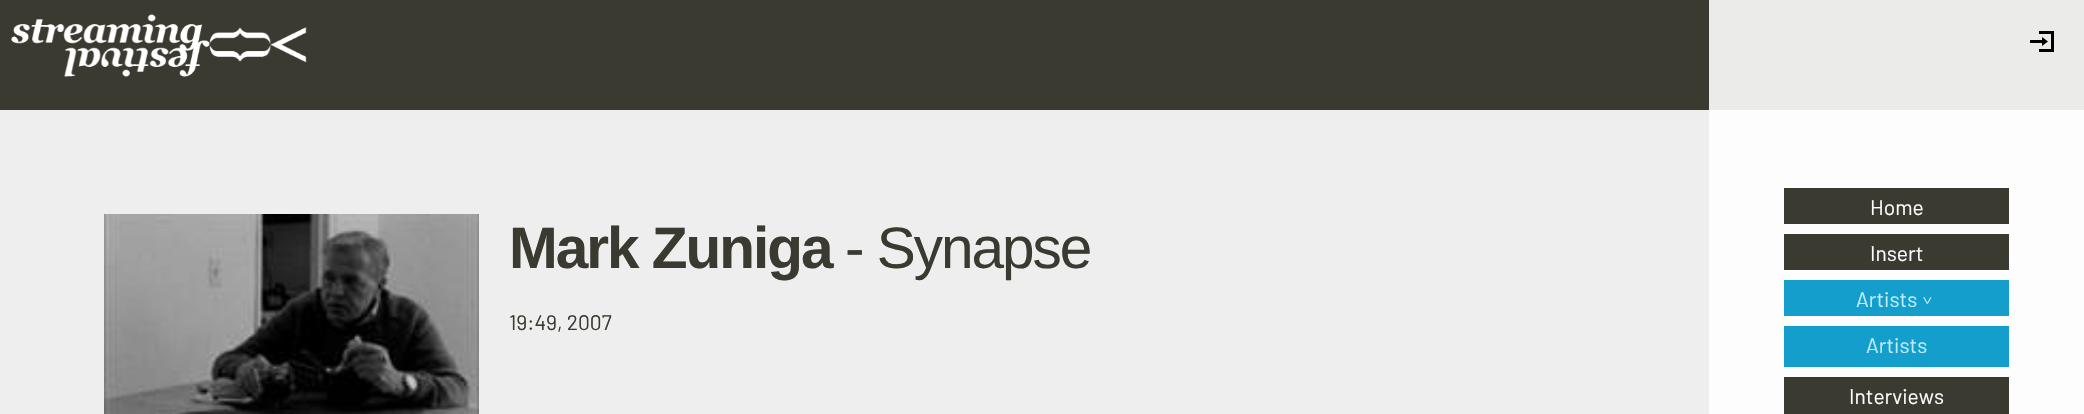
#include "include/core/SkBlurTypes.h"
#include "include/core/SkCanvas.h"
#include "include/core/SkData.h"
#include "include/core/SkFont.h"
#include "include/core/SkFontMgr.h"
#include "include/core/SkImage.h"
#include "include/core/SkMaskFilter.h"
#include "include/core/SkPaint.h"
#include "include/core/SkPathBuilder.h"
#include "include/core/SkTextBlob.h"
#include "include/effects/SkDashPathEffect.h"
#include "include/effects/SkGradientShader.h"
#include "include/utils/SkParsePath.h"

extern sk_sp<SkFontMgr> fontMgr;

void draw(SkCanvas* canvas) {
  SkPaint p;
  p.setAntiAlias(true);
  auto spacedText = [&](const char* s, float x, float y, const SkFont& font, const SkPaint& ink, float letter, float word) {
    std::vector<SkGlyphID> glyphs(font.countText(s, strlen(s), SkTextEncoding::kUTF8));
    std::vector<float> xs(glyphs.size());
    font.textToGlyphs(s, strlen(s), SkTextEncoding::kUTF8, glyphs);
    font.getXPos(glyphs, xs, x);
    float extra = 0;
    for (size_t i = 0; i < glyphs.size(); i++) {
      xs[i] += extra;
      extra += letter + word * (glyphs[i] == font.unicharToGlyph(' '));
    }
    canvas->drawTextBlob(SkTextBlob::MakeFromPosHGlyphs(glyphs, xs, y, font), 0, 0, ink);
  };
  canvas->clear(SkColorSetRGB(238, 238, 238));
  p.setColor(SkColorSetRGB(253, 253, 253));
  canvas->drawRect(SkRect::MakeLTRB(1709, 110, 2084, 414), p);
  p.setColor(SkColorSetRGB(59, 58, 48));
  canvas->drawRect(SkRect::MakeLTRB(0, 0, 1709, 110), p);
  p.setColor(SkColorSetRGB(235, 235, 234));
  canvas->drawRect(SkRect::MakeLTRB(1709, 0, 2084, 110), p);
  canvas->drawImageRect(SkImages::DeferredFromEncodedData(SkData::MakeFromFileName("images/1.png")), SkRect::MakeLTRB(11, 14, 307, 77), SkSamplingOptions());
  canvas->drawImageRect(SkImages::DeferredFromEncodedData(SkData::MakeFromFileName("images/2.png")), SkRect::MakeLTRB(104, 214, 479, 414), SkSamplingOptions());
  canvas->drawImageRect(SkImages::DeferredFromEncodedData(SkData::MakeFromFileName("images/3.png")), SkRect::MakeLTRB(2030, 31, 2054, 52), SkSamplingOptions());
  p.setColor(SkColorSetRGB(59, 58, 48));
  canvas->drawRect(SkRect::MakeLTRB(1784, 188, 2009, 224), p);
  canvas->drawRect(SkRect::MakeLTRB(1784, 234, 2009, 270), p);
  p.setColor(SkColorSetRGB(20, 158, 203));
  canvas->drawRect(SkRect::MakeLTRB(1784, 280, 2009, 316), p);
  canvas->drawRect(SkRect::MakeLTRB(1784, 326, 2009, 367), p);
  p.setColor(SkColorSetRGB(59, 58, 48));
  canvas->drawRect(SkRect::MakeLTRB(1784, 377, 2009, 414), p);
  SkFont font1(fontMgr->matchFamilyStyle("Liberation Sans", SkFontStyle::Bold()), 58.5f);
  font1.setSubpixel(true);
  spacedText("Mark Zuniga", 509, 268, font1, p, -2, 0);
  SkFont font2(fontMgr->matchFamilyStyle("Liberation Sans", SkFontStyle::Normal()), 58.5f);
  font2.setSubpixel(true);
  spacedText("- Synapse", 845, 268, font2, p, -2, 0);
  SkFont font3(fontMgr->matchFamilyStyle("Barlow", SkFontStyle::Normal()), 21);
  font3.setSubpixel(true);
  canvas->drawString("19:49, 2007", 509, 330, font3, p);
  p.setColor(SK_ColorWHITE);
  canvas->drawString("Home", 1870, 215, font3, p);
  canvas->drawString("Insert", 1870, 261, font3, p);
  p.setColor(SkColorSetRGB(193, 235, 249));
  canvas->drawString("Artists", 1856, 307, font3, p);
  SkFont font4(fontMgr->matchFamilyStyle("Quicksand", SkFontStyle::Normal()), 16);
  font4.setSubpixel(true);
  canvas->save();
  canvas->rotate(90, 1922, 296);
  canvas->drawString(">", 1922, 296, font4, p);
  canvas->restore();
  canvas->drawString("Artists", 1866, 353, font3, p);
  p.setColor(SK_ColorWHITE);
  canvas->drawString("Interviews", 1849, 404, font3, p);
}
